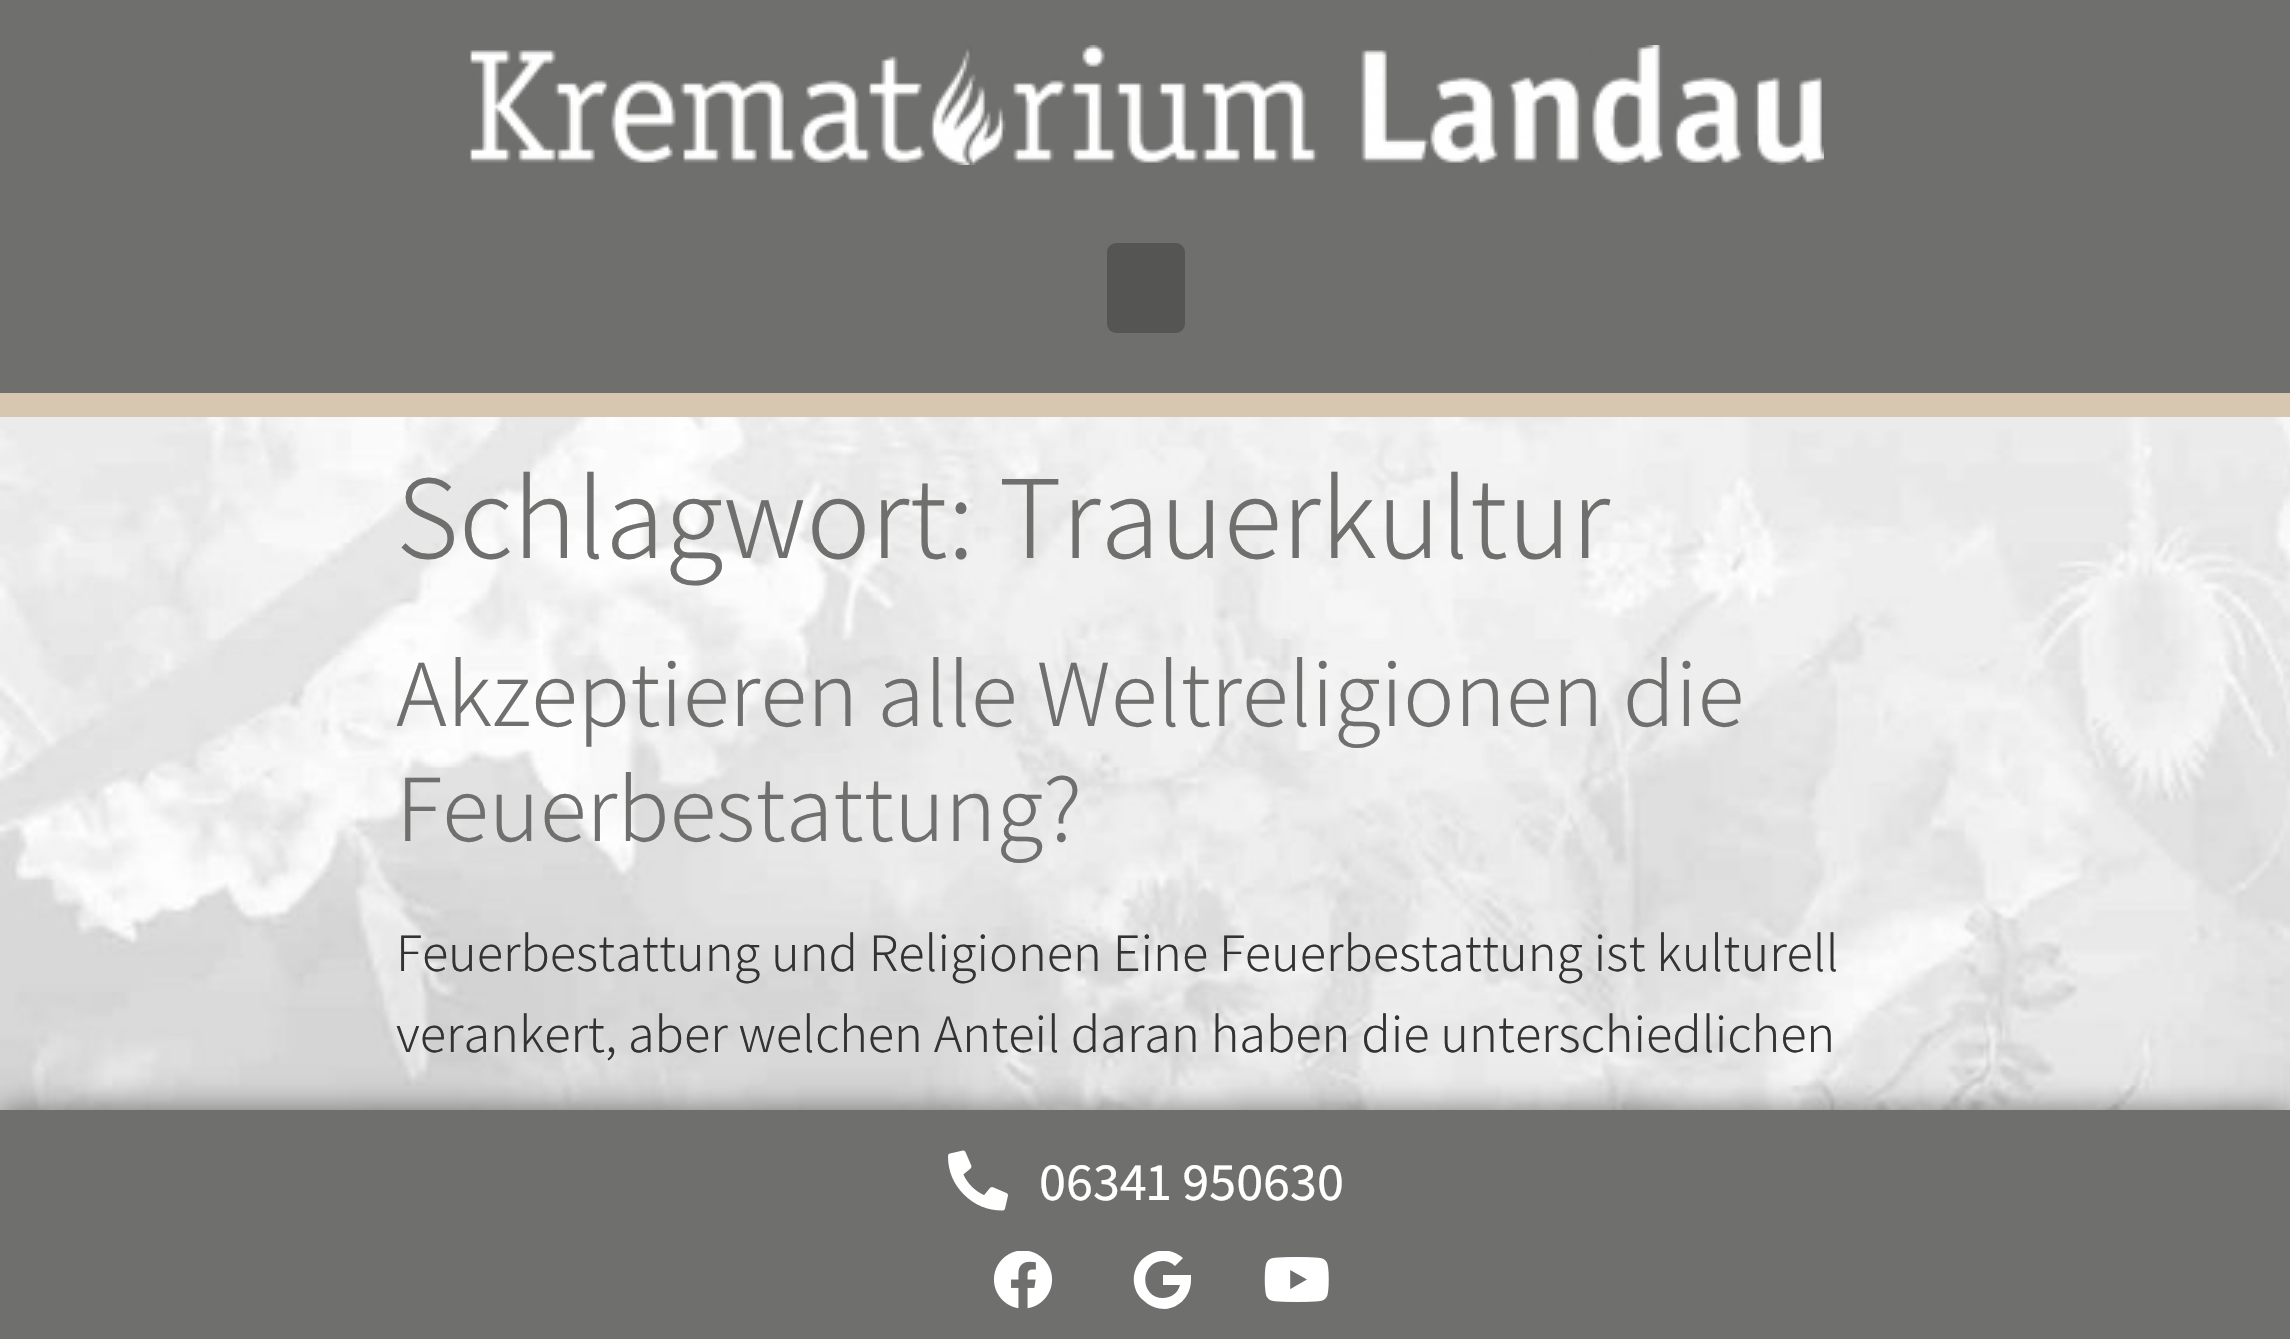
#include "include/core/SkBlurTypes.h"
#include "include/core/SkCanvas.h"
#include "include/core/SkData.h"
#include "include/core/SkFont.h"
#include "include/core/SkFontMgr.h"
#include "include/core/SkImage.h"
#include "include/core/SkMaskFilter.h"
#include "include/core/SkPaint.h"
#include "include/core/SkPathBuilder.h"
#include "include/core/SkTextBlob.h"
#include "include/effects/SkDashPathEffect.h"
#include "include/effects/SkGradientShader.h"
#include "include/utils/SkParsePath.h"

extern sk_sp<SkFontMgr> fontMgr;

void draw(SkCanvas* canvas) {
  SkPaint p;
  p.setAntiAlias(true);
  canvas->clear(SK_ColorWHITE);
  canvas->drawImageRect(SkImages::DeferredFromEncodedData(SkData::MakeFromFileName("images/1.png")), SkRect::MakeLTRB(0, 417, 2290, 1110), SkSamplingOptions());
  p.setColor(SkColorSetRGB(111, 111, 110));
  canvas->drawRect(SkRect::MakeLTRB(0, 0, 2290, 393), p);
  p.setColor(SkColorSetRGB(215, 198, 176));
  canvas->drawRect(SkRect::MakeLTRB(0, 393, 2290, 417), p);
  canvas->drawImageRect(SkImages::DeferredFromEncodedData(SkData::MakeFromFileName("images/2.png")), SkRect::MakeLTRB(470, 45, 1824, 165), SkSamplingOptions());
  p.setColor(SkColorSetRGB(85, 85, 84));
  canvas->drawRoundRect(SkRect::MakeLTRB(1107, 243, 1185, 333), 9, 9, p);
  p.setColor(SkColorSetARGB(128, 0, 0, 0));
  p.setMaskFilter(SkMaskFilter::MakeBlur(kNormal_SkBlurStyle, 15));
  canvas->drawRect(SkRect::MakeLTRB(0, 1110, 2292, 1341), p);
  p.setMaskFilter(nullptr);
  p.setColor(SkColorSetRGB(111, 111, 110));
  canvas->drawRect(SkRect::MakeLTRB(0, 1110, 2290, 1339), p);
  canvas->drawImageRect(SkImages::DeferredFromEncodedData(SkData::MakeFromFileName("images/3.png")), SkRect::MakeLTRB(948, 1150, 1008, 1211), SkSamplingOptions());
  canvas->drawImageRect(SkImages::DeferredFromEncodedData(SkData::MakeFromFileName("images/4.png")), SkRect::MakeLTRB(993, 1251, 1053, 1309), SkSamplingOptions());
  canvas->save();
  canvas->clipRect(SkRect::MakeLTRB(30, 1251, 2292, 1311));
  p.setColor(SK_ColorWHITE);
  canvas->drawPath(SkPathBuilder().moveTo(1191, 1280).cubicTo(1191, 1295, 1180, 1308, 1165, 1309).cubicTo(1157, 1309, 1149, 1306, 1143, 1300).cubicTo(1138, 1296, 1135, 1290, 1134, 1283).cubicTo(1131, 1257, 1163, 1240, 1183, 1258).lineTo(1175, 1266).cubicTo(1171, 1262, 1167, 1261, 1162, 1261).cubicTo(1139, 1263, 1140, 1298, 1163, 1298).cubicTo(1171, 1298, 1178, 1293, 1180, 1285).lineTo(1163, 1285).lineTo(1163, 1275).lineTo(1191, 1275).close().detach(), p);
  canvas->restore();
  canvas->drawImageRect(SkImages::DeferredFromEncodedData(SkData::MakeFromFileName("images/5.png")), SkRect::MakeLTRB(1264, 1257, 1329, 1302), SkSamplingOptions());
  SkFont font1(fontMgr->matchFamilyStyle("Assistant", SkFontStyle(200, SkFontStyle::kNormal_Width, SkFontStyle::kUpright_Slant)), 120);
  font1.setSubpixel(true);
  p.setColor(SkColorSetRGB(111, 111, 110));
  canvas->drawString("Schlagwort: Trauerkultur", 396, 558, font1, p);
  SkFont font2(fontMgr->matchFamilyStyle("Assistant", SkFontStyle(200, SkFontStyle::kNormal_Width, SkFontStyle::kUpright_Slant)), 96);
  font2.setSubpixel(true);
  canvas->drawString("Akzeptieren alle Weltreligionen die", 396, 726, font2, p);
  canvas->drawString("Feuerbestattung?", 396, 841, font2, p);
  SkFont font3(fontMgr->matchFamilyStyle("Assistant", SkFontStyle(200, SkFontStyle::kNormal_Width, SkFontStyle::kUpright_Slant)), 54);
  font3.setSubpixel(true);
  p.setColor(SkColorSetRGB(51, 51, 51));
  canvas->drawString("Feuerbestattung und Religionen Eine Feuerbestattung ist kulturell", 396, 971, font3, p);
  canvas->drawString("verankert, aber welchen Anteil daran haben die unterschiedlichen", 396, 1052, font3, p);
  SkFont font4(fontMgr->matchFamilyStyle("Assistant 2", SkFontStyle(200, SkFontStyle::kNormal_Width, SkFontStyle::kUpright_Slant)), 54);
  font4.setSubpixel(true);
  p.setColor(SK_ColorWHITE);
  canvas->drawString("06341 950630", 1039, 1200, font4, p);
}
